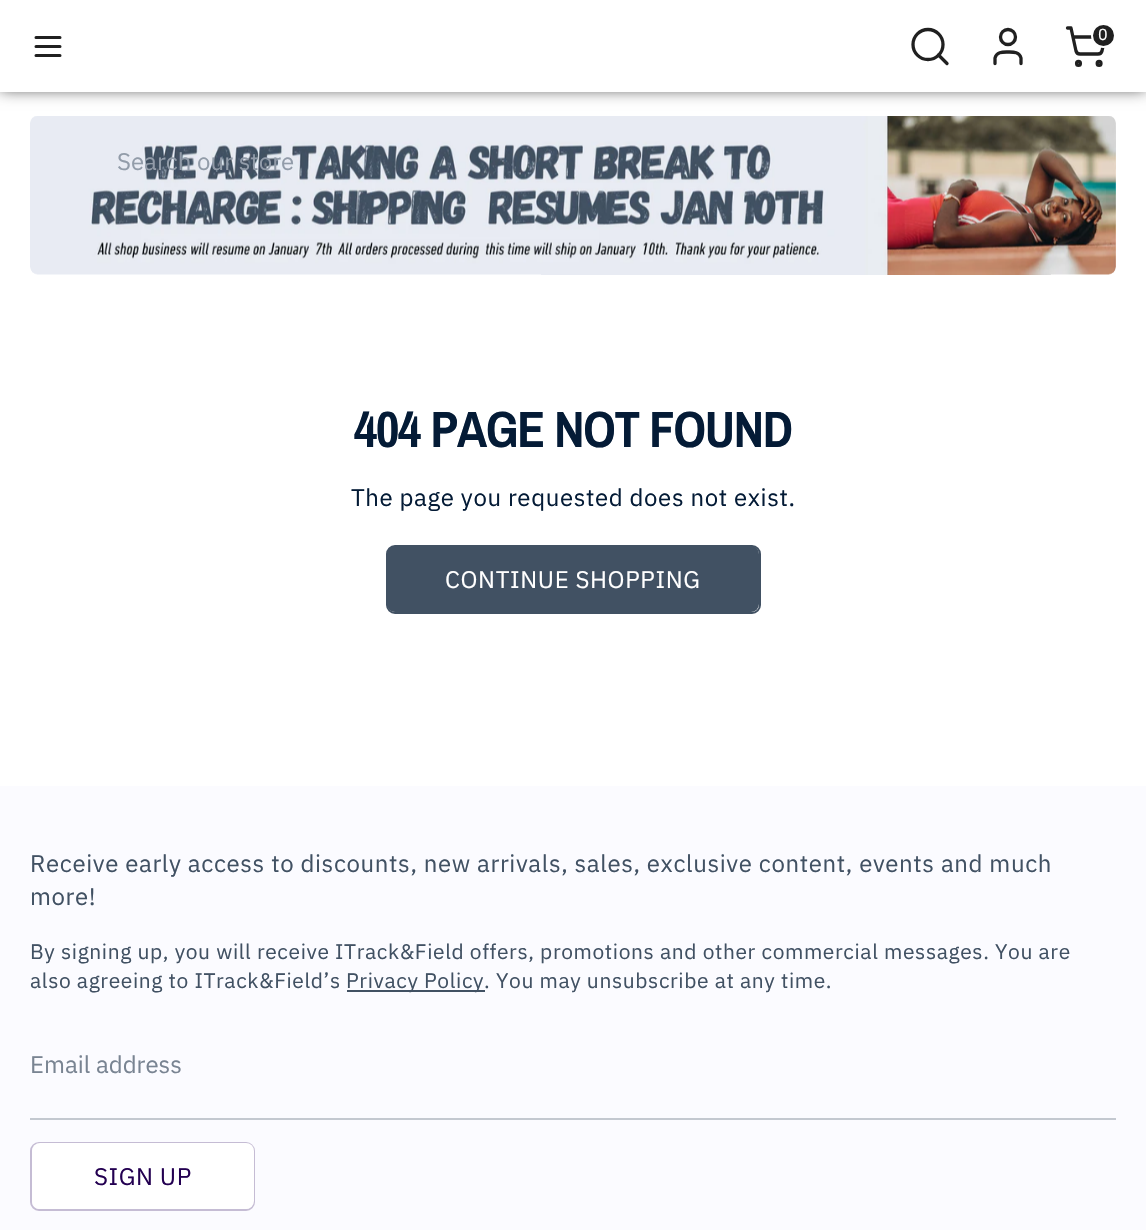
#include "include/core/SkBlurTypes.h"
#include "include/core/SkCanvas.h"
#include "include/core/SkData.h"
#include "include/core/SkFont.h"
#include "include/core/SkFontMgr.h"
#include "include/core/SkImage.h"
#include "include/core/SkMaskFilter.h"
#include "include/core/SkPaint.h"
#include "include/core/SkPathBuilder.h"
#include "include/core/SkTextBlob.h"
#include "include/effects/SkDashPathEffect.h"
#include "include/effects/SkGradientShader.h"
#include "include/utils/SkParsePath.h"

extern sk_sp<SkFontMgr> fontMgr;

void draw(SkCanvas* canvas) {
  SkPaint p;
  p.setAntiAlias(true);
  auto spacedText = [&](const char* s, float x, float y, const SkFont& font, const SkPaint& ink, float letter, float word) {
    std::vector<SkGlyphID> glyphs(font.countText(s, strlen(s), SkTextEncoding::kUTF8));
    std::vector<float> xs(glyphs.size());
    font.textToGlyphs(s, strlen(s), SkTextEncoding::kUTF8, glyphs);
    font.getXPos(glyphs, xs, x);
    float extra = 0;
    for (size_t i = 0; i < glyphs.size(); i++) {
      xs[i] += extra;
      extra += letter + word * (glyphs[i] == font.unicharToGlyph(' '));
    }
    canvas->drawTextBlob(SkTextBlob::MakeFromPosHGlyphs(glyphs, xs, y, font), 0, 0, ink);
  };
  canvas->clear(SK_ColorWHITE);
  p.setColor(SkColorSetARGB(191, 0, 0, 0));
  p.setMaskFilter(SkMaskFilter::MakeBlur(kNormal_SkBlurStyle, 7.5f));
  canvas->drawRect(SkRect::MakeLTRB(0, -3, 1146, 89), p);
  p.setMaskFilter(nullptr);
  p.setColor(SK_ColorWHITE);
  canvas->drawRect(SkRect::MakeLTRB(0, 0, 1146, 92), p);
  p.setStyle(SkPaint::kStroke_Style);
  p.setStrokeWidth(3.3f);
  p.setColor(SkColorSetRGB(32, 32, 32));
  canvas->drawCircle(928, 44.5f, 15, p);
  p.setStrokeCap(SkPaint::kRound_Cap);
  p.setStrokeJoin(SkPaint::kRound_Join);
  canvas->drawPath(SkPathBuilder().moveTo(947, 63.5f).lineTo(938.5f, 55).detach(), p);
  canvas->drawPath(SkPathBuilder().moveTo(1021, 63.5f).lineTo(1021, 58).cubicTo(1019.5f, 51.5f, 1013, 52, 1008, 52).cubicTo(1003, 52, 996.5f, 51.5f, 995, 58).lineTo(995, 63.5f).detach(), p);
  p.setStrokeCap(SkPaint::kButt_Cap);
  p.setStrokeJoin(SkPaint::kMiter_Join);
  canvas->drawCircle(1008, 37, 7.5f, p);
  canvas->drawCircle(1078.5f, 63.4f, 1.9f, p);
  canvas->drawCircle(1099.1f, 63.4f, 1.9f, p);
  p.setStrokeCap(SkPaint::kRound_Cap);
  p.setStrokeJoin(SkPaint::kRound_Join);
  canvas->drawPath(SkPathBuilder().moveTo(1067.5f, 28).lineTo(1071, 28).lineTo(1076, 51).cubicTo(1076.5f, 53, 1078, 54, 1080, 54).lineTo(1098, 54).cubicTo(1100, 54, 1101.5f, 53, 1102, 51).lineTo(1105, 37).lineTo(1073, 37).detach(), p);
  p.setStyle(SkPaint::kFill_Style);
  canvas->drawCircle(1103.5f, 35.5f, 11.5f, p);
  p.setStyle(SkPaint::kStroke_Style);
  p.setStrokeWidth(2);
  p.setStrokeCap(SkPaint::kButt_Cap);
  p.setStrokeJoin(SkPaint::kMiter_Join);
  p.setColor(SK_ColorWHITE);
  canvas->drawCircle(1103.5f, 35.5f, 11.5f, p);
  p.setStrokeWidth(3);
  p.setStrokeCap(SkPaint::kRound_Cap);
  p.setStrokeJoin(SkPaint::kRound_Join);
  p.setColor(SkColorSetRGB(32, 32, 32));
  canvas->drawPath(SkPathBuilder().moveTo(36, 46.5f).lineTo(60, 46.5f).moveTo(36, 37.5f).lineTo(60, 37.5f).moveTo(36, 55.5f).lineTo(60, 55.5f).detach(), p);
  canvas->drawImageRect(SkImages::DeferredFromEncodedData(SkData::MakeFromFileName("images/1.png")), SkRect::MakeLTRB(30, 116, 1116, 275), SkSamplingOptions());
  p.setStrokeWidth(2);
  p.setStrokeCap(SkPaint::kButt_Cap);
  p.setStrokeJoin(SkPaint::kMiter_Join);
  p.setColor(SkColorSetRGB(65, 81, 99));
  canvas->drawRoundRect(SkRect::MakeLTRB(387, 546, 760, 613), 8, 8, p);
  p.setStyle(SkPaint::kFill_Style);
  canvas->drawRoundRect(SkRect::MakeLTRB(387, 546, 759, 612), 8, 8, p);
  p.setColor(SkColorSetRGB(251, 251, 255));
  canvas->drawRect(SkRect::MakeLTRB(0, 786, 1146, 1230), p);
  p.setColor(SkColorSetRGB(65, 81, 99));
  canvas->drawRect(SkRect::MakeLTRB(347, 990, 485, 992), p);
  p.setColor(SkColorSetRGB(195, 200, 208));
  canvas->drawRect(SkRect::MakeLTRB(30, 1118, 1116, 1120), p);
  p.setStyle(SkPaint::kStroke_Style);
  p.setColor(SkColorSetRGB(197, 188, 212));
  canvas->drawRoundRect(SkRect::MakeLTRB(31, 1143, 254, 1210), 8, 8, p);
  p.setStyle(SkPaint::kFill_Style);
  p.setColor(SK_ColorWHITE);
  canvas->drawRoundRect(SkRect::MakeLTRB(32, 1143, 254, 1209), 8, 8, p);
  SkFont font1(fontMgr->matchFamilyStyle("IBM Plex Sans", SkFontStyle::Normal()), 16);
  font1.setSubpixel(true);
  canvas->drawString("0", 1098, 40, font1, p);
  SkFont font2(fontMgr->matchFamilyStyle("IBM Plex Sans", SkFontStyle::Normal()), 24);
  font2.setSubpixel(true);
  p.setColor(SkColorSetRGB(146, 156, 169));
  canvas->drawString("Search our store", 117, 170, font2, p);
  SkFont font3(fontMgr->matchFamilyStyle("Archivo Narrow", SkFontStyle::Bold()), 51);
  font3.setSubpixel(true);
  p.setColor(SkColorSetRGB(4, 27, 54));
  spacedText("404 PAGE NOT FOUND", 354, 447, font3, p, -1.25f, 0);
  spacedText("The page you requested does not exist.", 351, 506, font2, p, 0.6f, 0);
  p.setColor(SK_ColorWHITE);
  spacedText("CONTINUE SHOPPING", 445, 588, font2, p, 0.6f, 0);
  p.setColor(SkColorSetRGB(65, 81, 99));
  spacedText("Receive early access to discounts, new arrivals, sales, exclusive content, events and much", 30, 872, font2, p, 0.6f, 0);
  spacedText("more!", 30, 905, font2, p, 0.6f, 0);
  SkFont font4(fontMgr->matchFamilyStyle("IBM Plex Sans", SkFontStyle::Normal()), 21);
  font4.setSubpixel(true);
  spacedText("By signing up, you will receive ITrack&Field offers, promotions and other commercial messages. You are", 30, 959, font4, p, 0.6f, 0);
  spacedText("also agreeing to ITrack&Field’s", 30, 988, font4, p, 0.6f, 0);
  spacedText("Privacy Policy. You may unsubscribe at any time.", 346, 988, font4, p, 0.6f, 0);
  p.setColor(SkColorSetRGB(121, 132, 146));
  canvas->drawString("Email address", 30, 1073, font2, p);
  p.setColor(SkColorSetRGB(35, 0, 81));
  spacedText("SIGN UP", 94, 1185, font2, p, 0.6f, 0);
}
